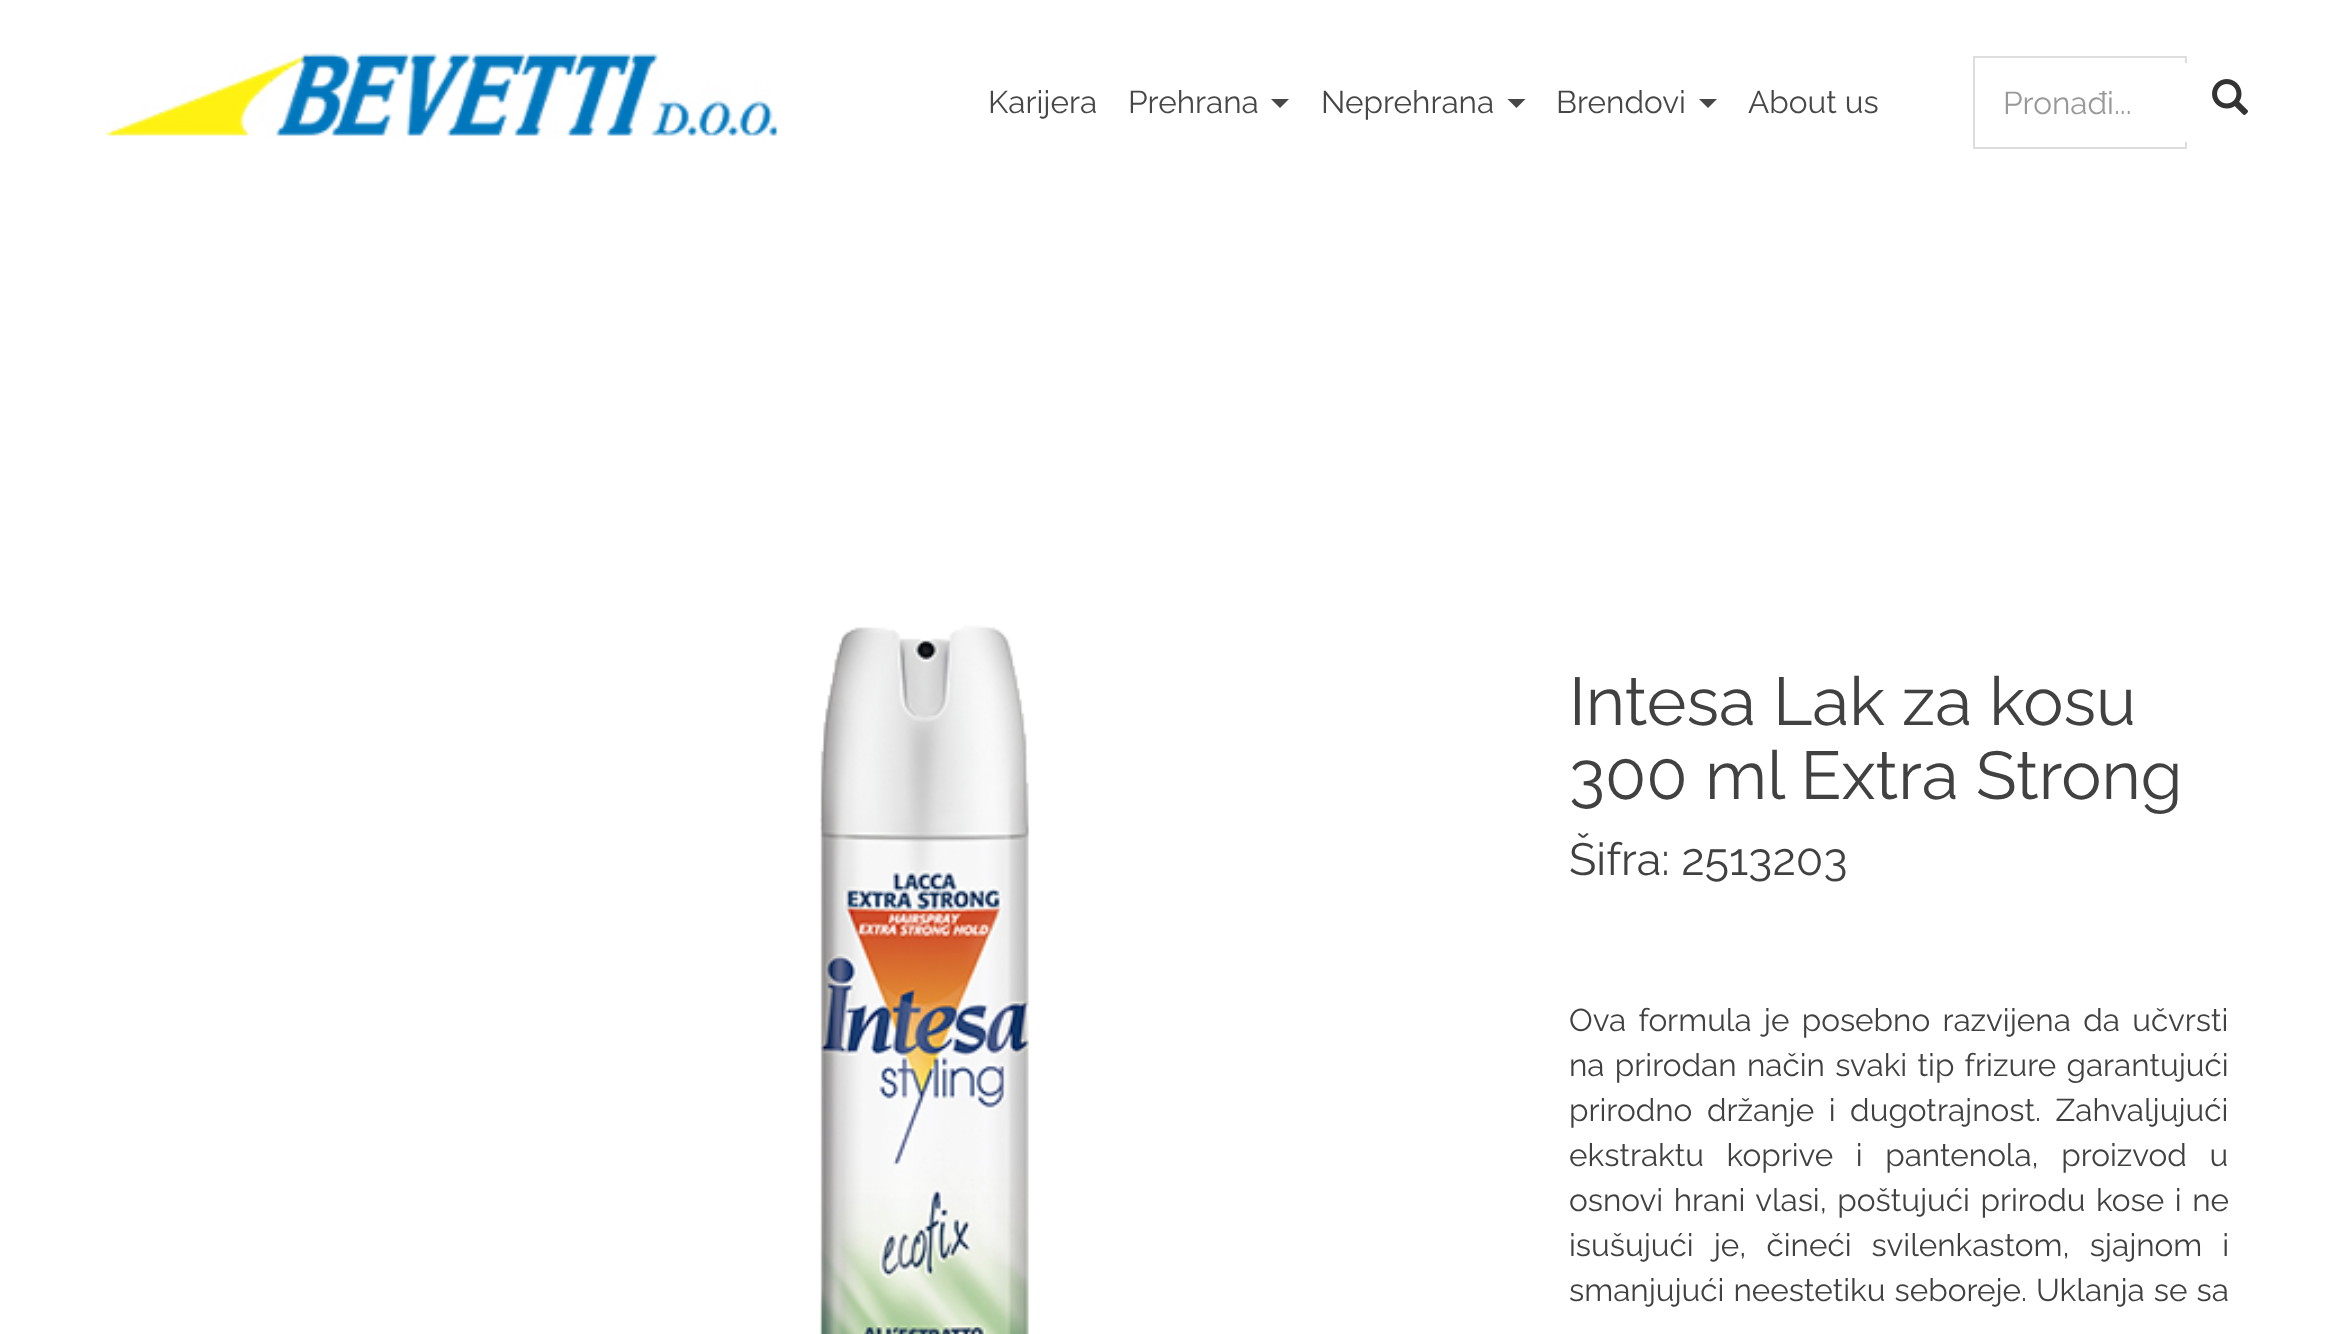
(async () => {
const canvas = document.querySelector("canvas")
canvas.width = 2341
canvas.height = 1334
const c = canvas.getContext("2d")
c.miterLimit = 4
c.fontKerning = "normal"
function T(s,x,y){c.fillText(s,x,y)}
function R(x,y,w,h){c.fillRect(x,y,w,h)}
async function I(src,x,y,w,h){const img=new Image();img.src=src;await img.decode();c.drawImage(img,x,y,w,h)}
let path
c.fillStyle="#fff"
R(0,0,2341,1334)
await I("1.png",105,53,672,86)
c.font="31.5px Raleway"
c.fillStyle="#474747"
T("Karijera",988,113)
T("Prehrana",1128,113)
path = new Path2D("M1271 99h18l-9 9z")
c.fill(path)
T("Neprehrana",1321,113)
path = new Path2D("M1507.5 99h18l-9 9z")
c.fill(path)
T("Brendovi",1556,113)
path = new Path2D("M1699 99h18l-9 9z")
c.fill(path)
T("About us",1748,113)
c.strokeStyle="#ddd"
c.lineWidth=2
c.strokeRect(1974,57,212,91)
c.fillStyle="#999"
T("Pronađi...",2003,114)
c.fillStyle="#fff"
c.beginPath()
c.roundRect(2185,63,90,79,[0,9,9,0])
c.fill()
await I("2.png",2212,79,36,36)
await I("3.png",819,625,211,709)
c.font="67.5px Raleway"
c.fillStyle="#414141"
T("Intesa Lak za kosu",1569,725)
T("300 ml Extra Strong",1569,799)
c.font="45px Raleway"
T("Šifra: 2513203",1569,875)
c.wordSpacing="4.25px"
c.font="31.5px Raleway"
T("Ova formula je posebno razvijena da učvrsti",1569,1031)
c.wordSpacing="2.25px"
T("na prirodan način svaki tip frizure garantujući",1569,1076)
c.wordSpacing="6.5px"
T("prirodno držanje i dugotrajnost. Zahvaljujući",1569,1121)
c.wordSpacing="14.5px"
T("ekstraktu koprive i pantenola, proizvod u",1569,1166)
c.wordSpacing="2.5px"
T("osnovi hrani vlasi, poštujući prirodu kose i ne",1569,1211)
c.wordSpacing="12px"
T("isušujući je, čineći svilenkastom, sjajnom i",1569,1256)
c.wordSpacing="1px"
T("smanjujući neestetiku seboreje. Uklanja se sa",1569,1301)
})()
